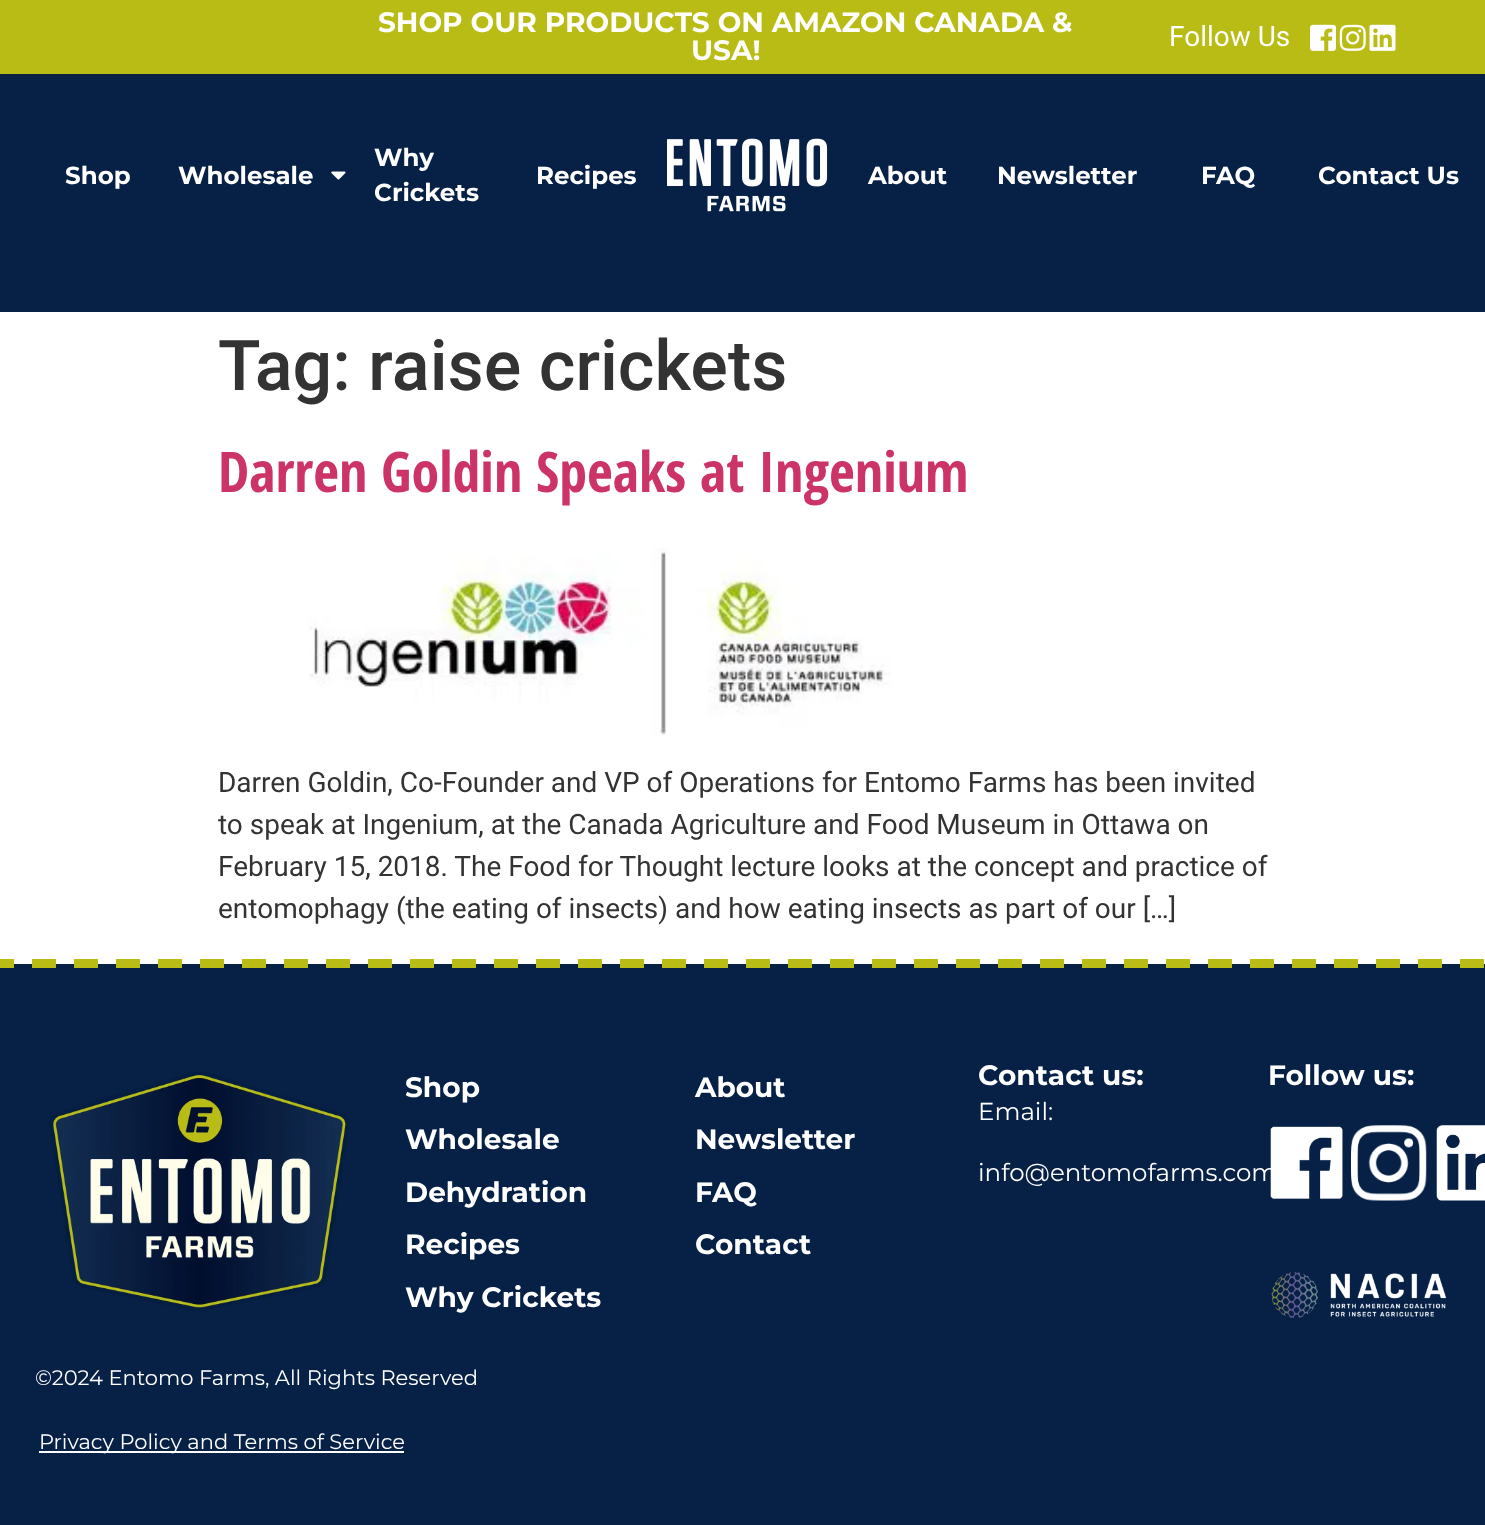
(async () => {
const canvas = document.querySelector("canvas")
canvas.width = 1485
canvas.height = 1525
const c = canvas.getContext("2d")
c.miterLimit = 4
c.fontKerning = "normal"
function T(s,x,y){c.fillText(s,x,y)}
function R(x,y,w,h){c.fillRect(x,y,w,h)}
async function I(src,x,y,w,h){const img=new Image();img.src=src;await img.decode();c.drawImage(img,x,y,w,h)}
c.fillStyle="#fff"
R(0,0,1485,1525)
c.fillStyle="#babc16"
R(0,0,1485,74)
c.font="bold 28px Montserrat"
c.fillStyle="#fff"
T("SHOP OUR PRODUCTS ON AMAZON CANADA &",378,32)
T("USA!",691,60)
c.font="28px Roboto"
T("Follow Us",1169,46)
await I("1.png",1310,24,26,27)
await I("2.png",1339,24,27,27)
await I("3.png",1369,24,27,27)
c.fillStyle="#072046"
R(0,74,1485,238)
c.font="bold 24.5px Montserrat"
c.fillStyle="#fff"
T("Shop",65,184)
T("Wholesale",178,184)
await I("4.png",331,171,15,9)
T("Why",374,166)
T("Crickets",374,201)
T("Recipes",536,184)
await I("5.png",667,138,161,74)
T("About",868,184)
T("Newsletter",997,184)
T("FAQ",1201,184)
T("Contact Us",1318,184)
c.font="500 70px Roboto"
c.fillStyle="#333"
T("Tag: raise crickets",218,390)
c.font="bold 56px Open Sans Condensed"
c.fillStyle="#c36"
T("Darren Goldin Speaks at Ingenium",218,492)
await I("6.png",309,548,582,188)
c.font="28px Roboto"
c.fillStyle="#333"
T("Darren Goldin, Co-Founder and VP of Operations for Entomo Farms has been invited",218,792)
T("to speak at Ingenium, at the Canada Agriculture and Food Museum in Ottawa on",218,834)
T("February 15, 2018. The Food for Thought lecture looks at the concept and practice of",218,876)
T("entomophagy (the eating of insects) and how eating insects as part of our […]",218,918)
c.fillStyle="#072046"
R(0,964,1485,561)
await I("7.png",0,959,1484,9)
await I("8.png",49,1071,300,240)
c.font="bold 28px Montserrat"
c.fillStyle="#fff"
T("Shop",405,1097)
T("Wholesale",405,1149)
T("Dehydration",405,1202)
T("Recipes",405,1254)
T("Why Crickets",405,1307)
T("About",695,1097)
T("Newsletter",695,1149)
T("FAQ",695,1202)
T("Contact",695,1254)
T("Contact us:",978,1085)
c.font="100 24.5px Montserrat"
T("Email:",978,1120)
T("info@entomofarms.com",978,1181)
c.font="bold 28px Montserrat"
T("Follow us:",1268,1085)
await I("9.png",1270,1126,73,73)
await I("10.png",1351,1125,76,76)
await I("11.png",1436,1125,49,76)
await I("12.png",1271,1272,176,46)
c.font="100 21px Montserrat"
T("©2024 Entomo Farms, All Rights Reserved",35,1385)
R(39,1451,365,2)
T("Privacy Policy and Terms of Service",39,1449)
})()
